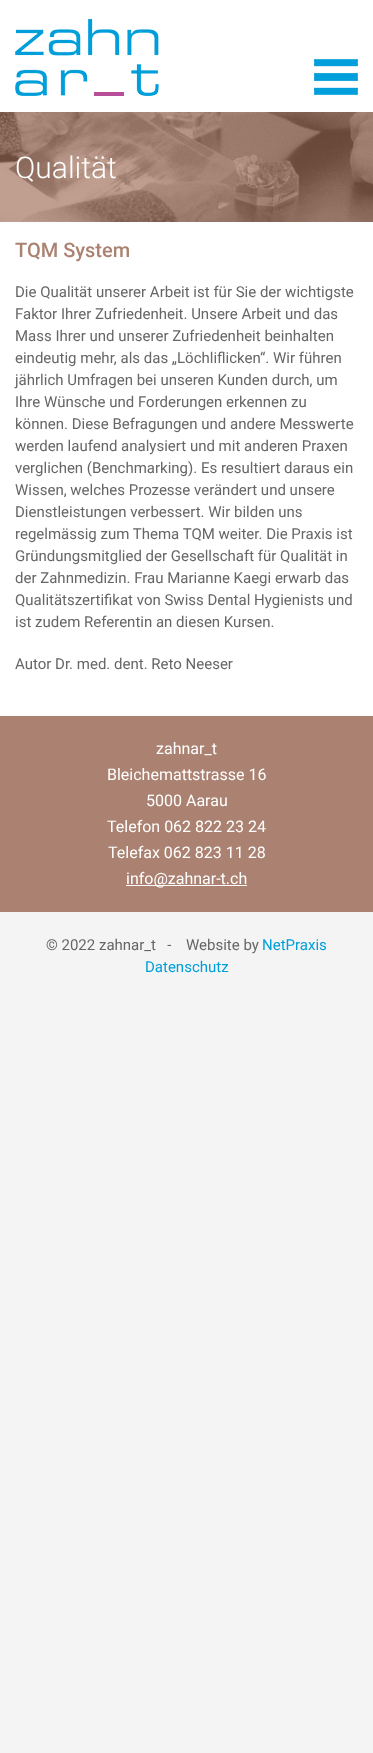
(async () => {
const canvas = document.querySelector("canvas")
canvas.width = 373
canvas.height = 1753
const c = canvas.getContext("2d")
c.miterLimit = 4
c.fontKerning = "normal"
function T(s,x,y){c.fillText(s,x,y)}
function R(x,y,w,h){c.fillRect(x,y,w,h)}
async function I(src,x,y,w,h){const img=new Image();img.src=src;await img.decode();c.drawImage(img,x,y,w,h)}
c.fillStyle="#f4f4f4"
R(0,0,373,1753)
c.fillStyle="#fff"
R(0,0,373,112)
await I("1.png",15,19,144,77)
await I("2.png",314,59,44,36)
await I("3.png",0,112,373,110)
c.font="300 30px Roboto"
T("Qualität",15,178)
R(0,222,373,494)
c.font="500 20px Roboto"
c.fillStyle="#ab8271"
T("TQM System",15,257)
c.font="15px Roboto"
c.fillStyle="#666"
T("Die Qualität unserer Arbeit ist für Sie der wichtigste",15,297)
T("Faktor Ihrer Zufriedenheit. Unsere Arbeit und das",15,319)
T("Mass Ihrer und unserer Zufriedenheit beinhalten",15,341)
T("eindeutig mehr, als das „Löchliflicken“. Wir führen",15,363)
T("jährlich Umfragen bei unseren Kunden durch, um",15,385)
T("Ihre Wünsche und Forderungen erkennen zu",15,407)
T("können. Diese Befragungen und andere Messwerte",15,429)
T("werden laufend analysiert und mit anderen Praxen",15,451)
T("verglichen (Benchmarking). Es resultiert daraus ein",15,473)
T("Wissen, welches Prozesse verändert und unsere",15,495)
T("Dienstleistungen verbessert. Wir bilden uns",15,517)
T("regelmässig zum Thema TQM weiter. Die Praxis ist",15,539)
T("Gründungsmitglied der Gesellschaft für Qualität in",15,561)
T("der Zahnmedizin. Frau Marianne Kaegi erwarb das",15,583)
T("Qualitätszertifikat von Swiss Dental Hygienists und",15,605)
T("ist zudem Referentin an diesen Kursen.",15,627)
T("Autor Dr. med. dent. Reto Neeser",15,669)
c.fillStyle="#ab8271"
R(0,716,373,196)
c.font="16px Roboto"
c.fillStyle="#fff"
T("zahnar_t",156,754)
T("Bleichemattstrasse 16",107,780)
T("5000 Aarau",146,806)
T("Telefon 062 822 23 24",107,832)
T("Telefax 062 823 11 28",108,858)
R(126,885,121,1)
T("info@zahnar-t.ch",126,884)
c.font="15px Roboto"
c.fillStyle="#666"
T("© 2022 zahnar_t   -",46,950)
T("Website by",186,950)
c.fillStyle="#009eda"
T("NetPraxis",262,950)
T("Datenschutz",145,972)
})()
